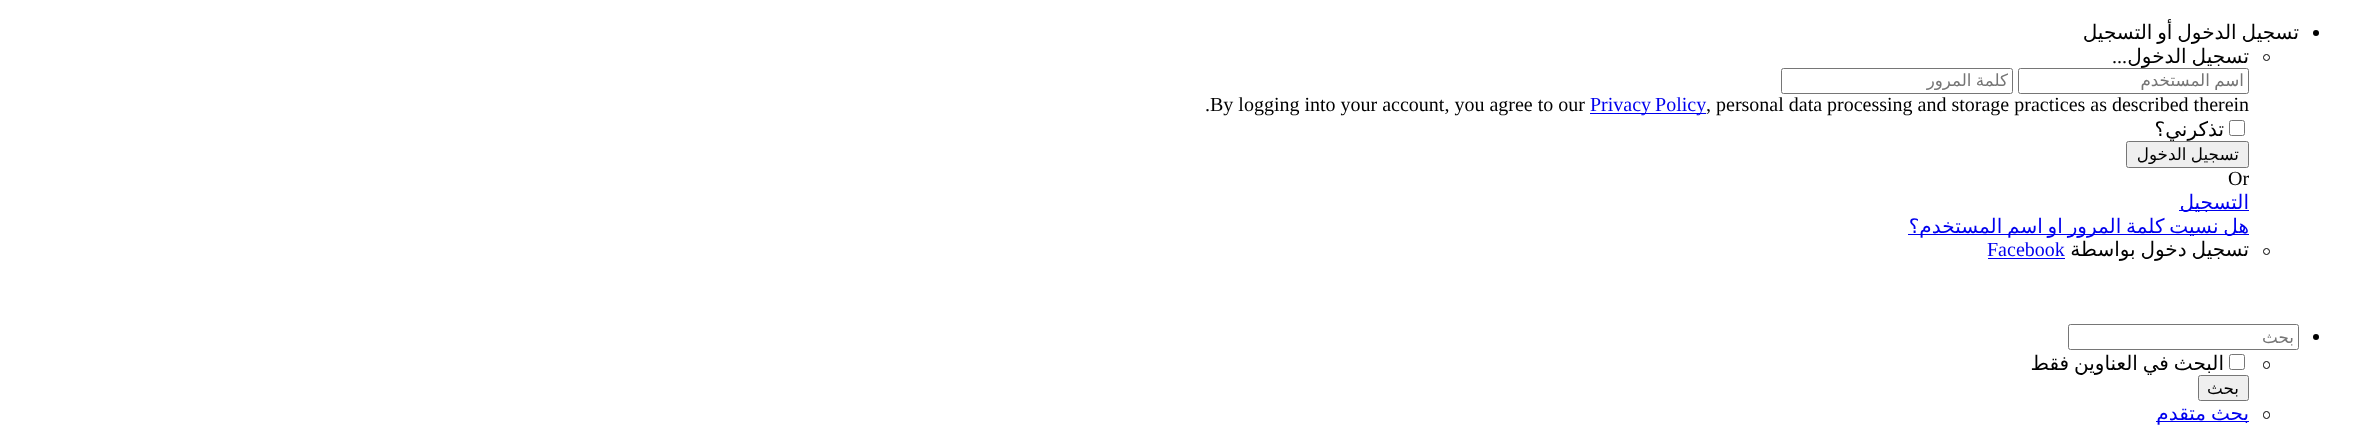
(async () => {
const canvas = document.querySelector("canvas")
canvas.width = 2358
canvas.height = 433
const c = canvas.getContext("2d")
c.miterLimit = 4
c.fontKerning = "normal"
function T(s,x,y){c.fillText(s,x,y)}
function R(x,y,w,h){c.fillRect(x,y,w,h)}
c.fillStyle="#fff"
R(0,0,2358,433)
c.fillStyle="#000"
c.beginPath()
c.arc(2316,33,3,0,7)
c.fill()
c.wordSpacing="-1.5px"
c.direction="rtl"
c.font="20px DejaVu Sans"
T("تسجيل الدخول أو التسجيل",2299,39)
c.beginPath()
c.arc(2266.5,57.5,3,0,7)
c.strokeStyle="#000"
c.stroke()
T("تسجيل الدخول",2249,63)
c.wordSpacing="0px"
c.font="20px Liberation Serif"
T("...",2127,63)
c.beginPath()
c.roundRect(2018.5,68.5,230,25,2)
c.strokeStyle="#767676"
c.stroke()
c.wordSpacing="-1px"
c.font="16.75px DejaVu Sans"
c.fillStyle="#757575"
T("اسم المستخدم",2244,86)
c.beginPath()
c.roundRect(1781.5,68.5,231,25,2)
c.stroke()
T("كلمة المرور",2008,86)
c.wordSpacing="0px"
c.direction="ltr"
c.font="20px Liberation Serif"
c.fillStyle="#000"
T(", personal data processing and storage practices as described therein",1706,111)
c.fillStyle="#00e"
R(1590,113,116,1)
c.wordSpacing="-1px"
T("Privacy Policy",1590,111)
c.wordSpacing="0px"
c.fillStyle="#000"
T("By logging into your account, you agree to our",1210,111)
T(".",1205,111)
c.beginPath()
c.roundRect(2229.5,120.5,15,15,2)
c.stroke()
c.direction="rtl"
c.font="20px DejaVu Sans"
T("تذكرني؟",2224,136)
c.fillStyle="#efefef"
c.beginPath()
c.roundRect(2126.5,141.5,122,26,2)
c.fill()
c.stroke()
c.wordSpacing="-1px"
c.font="16.75px DejaVu Sans"
c.fillStyle="#000"
T("تسجيل الدخول",2239,160)
c.wordSpacing="0px"
c.direction="ltr"
c.font="20px Liberation Serif"
T("Or",2228,185)
c.fillStyle="#00e"
R(2179,210,70,1)
c.direction="rtl"
c.font="20px DejaVu Sans"
T("التسجيل",2249,209)
R(1908,234,341,1)
c.wordSpacing="-1.5px"
T("هل نسيت كلمة المرور او اسم المستخدم؟",2249,233)
c.beginPath()
c.arc(2266.5,251.5,3,0,7)
c.strokeStyle="#000"
c.stroke()
c.fillStyle="#000"
T("تسجيل دخول بواسطة",2249,256)
c.wordSpacing="0px"
c.direction="ltr"
c.font="20px Liberation Serif"
c.fillStyle="#00e"
T("Facebook",1987,256)
R(1988,258,77,1)
c.fillStyle="#000"
c.beginPath()
c.arc(2316,337,3,0,7)
c.fill()
c.beginPath()
c.roundRect(2068.5,324.5,230,25,2)
c.strokeStyle="#767676"
c.stroke()
c.direction="rtl"
c.font="16.75px DejaVu Sans"
c.fillStyle="#757575"
T("بحث",2294,343)
c.beginPath()
c.roundRect(2263.5,361.5,6,7,3)
c.strokeStyle="#000"
c.stroke()
c.beginPath()
c.roundRect(2229.5,354.5,15,15,2)
c.strokeStyle="#767676"
c.stroke()
c.wordSpacing="-1.5px"
c.font="20px DejaVu Sans"
c.fillStyle="#000"
T("البحث في العناوين فقط",2224,370)
c.fillStyle="#efefef"
c.beginPath()
c.roundRect(2198.5,375.5,50,25,2)
c.fill()
c.stroke()
c.wordSpacing="0px"
c.font="16.75px DejaVu Sans"
c.fillStyle="#000"
T("بحث",2239,394)
c.beginPath()
c.roundRect(2263.5,411.5,6,7,3)
c.strokeStyle="#000"
c.stroke()
c.fillStyle="#00e"
R(2156,421,93,1)
c.wordSpacing="-1.5px"
c.font="20px DejaVu Sans"
T("بحث متقدم",2249,420)
})()
